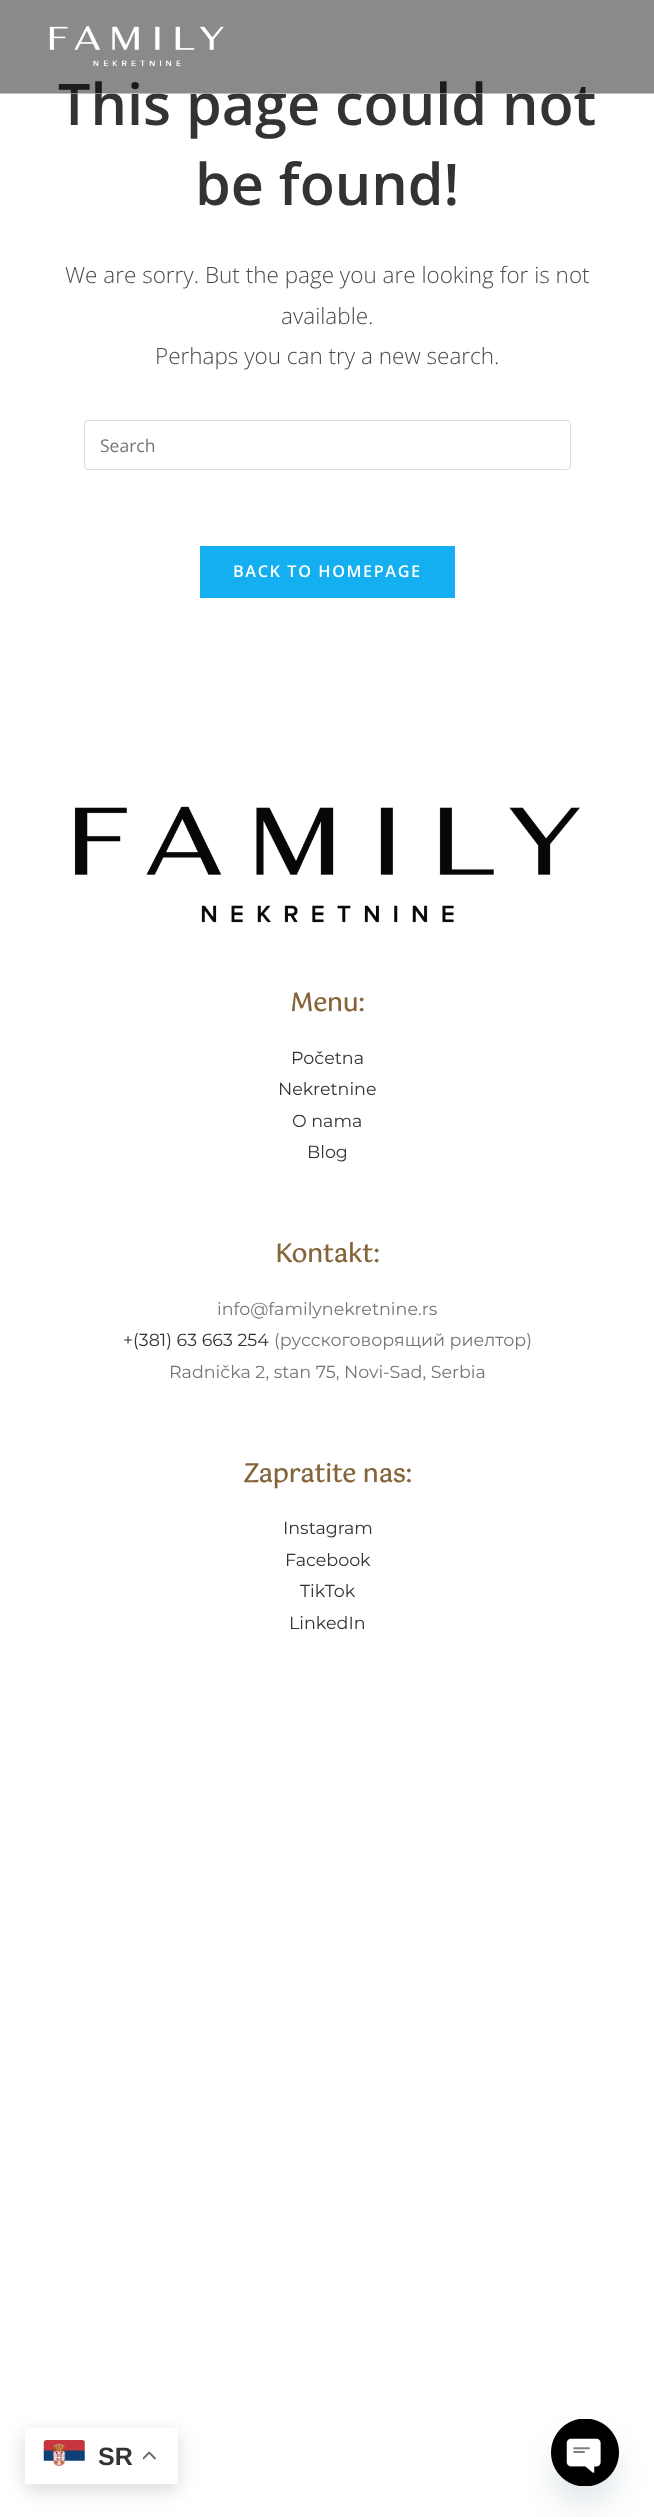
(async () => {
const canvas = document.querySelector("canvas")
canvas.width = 654
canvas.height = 2517
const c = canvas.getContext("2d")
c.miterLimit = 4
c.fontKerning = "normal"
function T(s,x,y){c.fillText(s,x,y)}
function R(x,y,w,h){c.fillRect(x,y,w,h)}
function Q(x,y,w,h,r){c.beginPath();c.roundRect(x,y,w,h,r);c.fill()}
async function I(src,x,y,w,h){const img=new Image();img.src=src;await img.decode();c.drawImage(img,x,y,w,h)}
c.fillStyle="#fff"
R(0,0,654,2517)
c.font="600 57.5px Open Sans"
c.fillStyle="#333"
T("This page could not",58,125)
c.fillStyle="#00000075"
R(0,0,654,94)
c.fillStyle="#f2f2f280"
R(0,93,654,1)
await I("1.png",49,26,175,41)
c.fillStyle="#333"
T("be found!",195,205)
c.font="300 22.5px Open Sans"
c.fillStyle="#4a4a4a"
T("We are sorry. But the page you are looking for is not",65,283)
T("available.",281,324)
T("Perhaps you can try a new search.",155,364)
c.beginPath()
c.roundRect(84.5,420.5,486,49,3.5)
c.strokeStyle="#ddd"
c.stroke()
c.font="17.5px Open Sans"
c.fillStyle="#757575"
T("Search",100,452)
c.fillStyle="#13aff0"
R(200,546,255,52)
c.letterSpacing="1.6px"
c.font="600 16.25px Open Sans"
c.fillStyle="#fff"
T("BACK TO HOMEPAGE",233,577)
await I("2.png",74,806,506,117)
c.letterSpacing="0px"
c.font="bold 25px Gotu"
c.fillStyle="#866439"
T("Menu:",290,1011)
c.font="17.5px Montserrat"
c.fillStyle="#333"
T("Početna",291,1064)
T("Nekretnine",278,1095)
T("O nama",292,1127)
T("Blog",307,1158)
c.font="bold 25px Gotu"
c.fillStyle="#866439"
T("Kontakt:",275,1262)
c.font="17.5px Montserrat"
c.fillStyle="#757575"
T("info@familynekretnine.rs",217,1315)
c.fillStyle="#333"
T("+(381) 63 663 254",123,1346)
c.fillStyle="#757575"
T("(русскоговорящий риелтор)",274,1346)
T("Radnička 2, stan 75, Novi-Sad, Serbia",169,1378)
c.font="bold 25px Gotu"
c.fillStyle="#866439"
T("Zapratite nas:",243,1482)
c.font="17.5px Montserrat"
c.fillStyle="#333"
T("Instagram",283,1534)
T("Facebook",285,1566)
T("TikTok",300,1597)
T("LinkedIn",289,1629)
c.fillStyle="#00000026"
c.filter="blur(9.5px)"
c.beginPath()
c.roundRect(25,2434,153,56,2.5)
c.fill()
c.filter="none"
c.fillStyle="#fff"
Q(25,2428,153,56,2.5)
await I("3.png",43,2440,42,26)
c.font="bold 25px Liberation Sans"
c.fillStyle="#333"
T("SR",98,2465)
await I("4.png",143,2451,13,9)
c.fillStyle="#49687e29"
c.filter="blur(15px)"
c.beginPath()
c.roundRect(551,2439,68,67,33.5)
c.fill()
c.filter="none"
await I("5.png",551,2419,68,67)
})()
